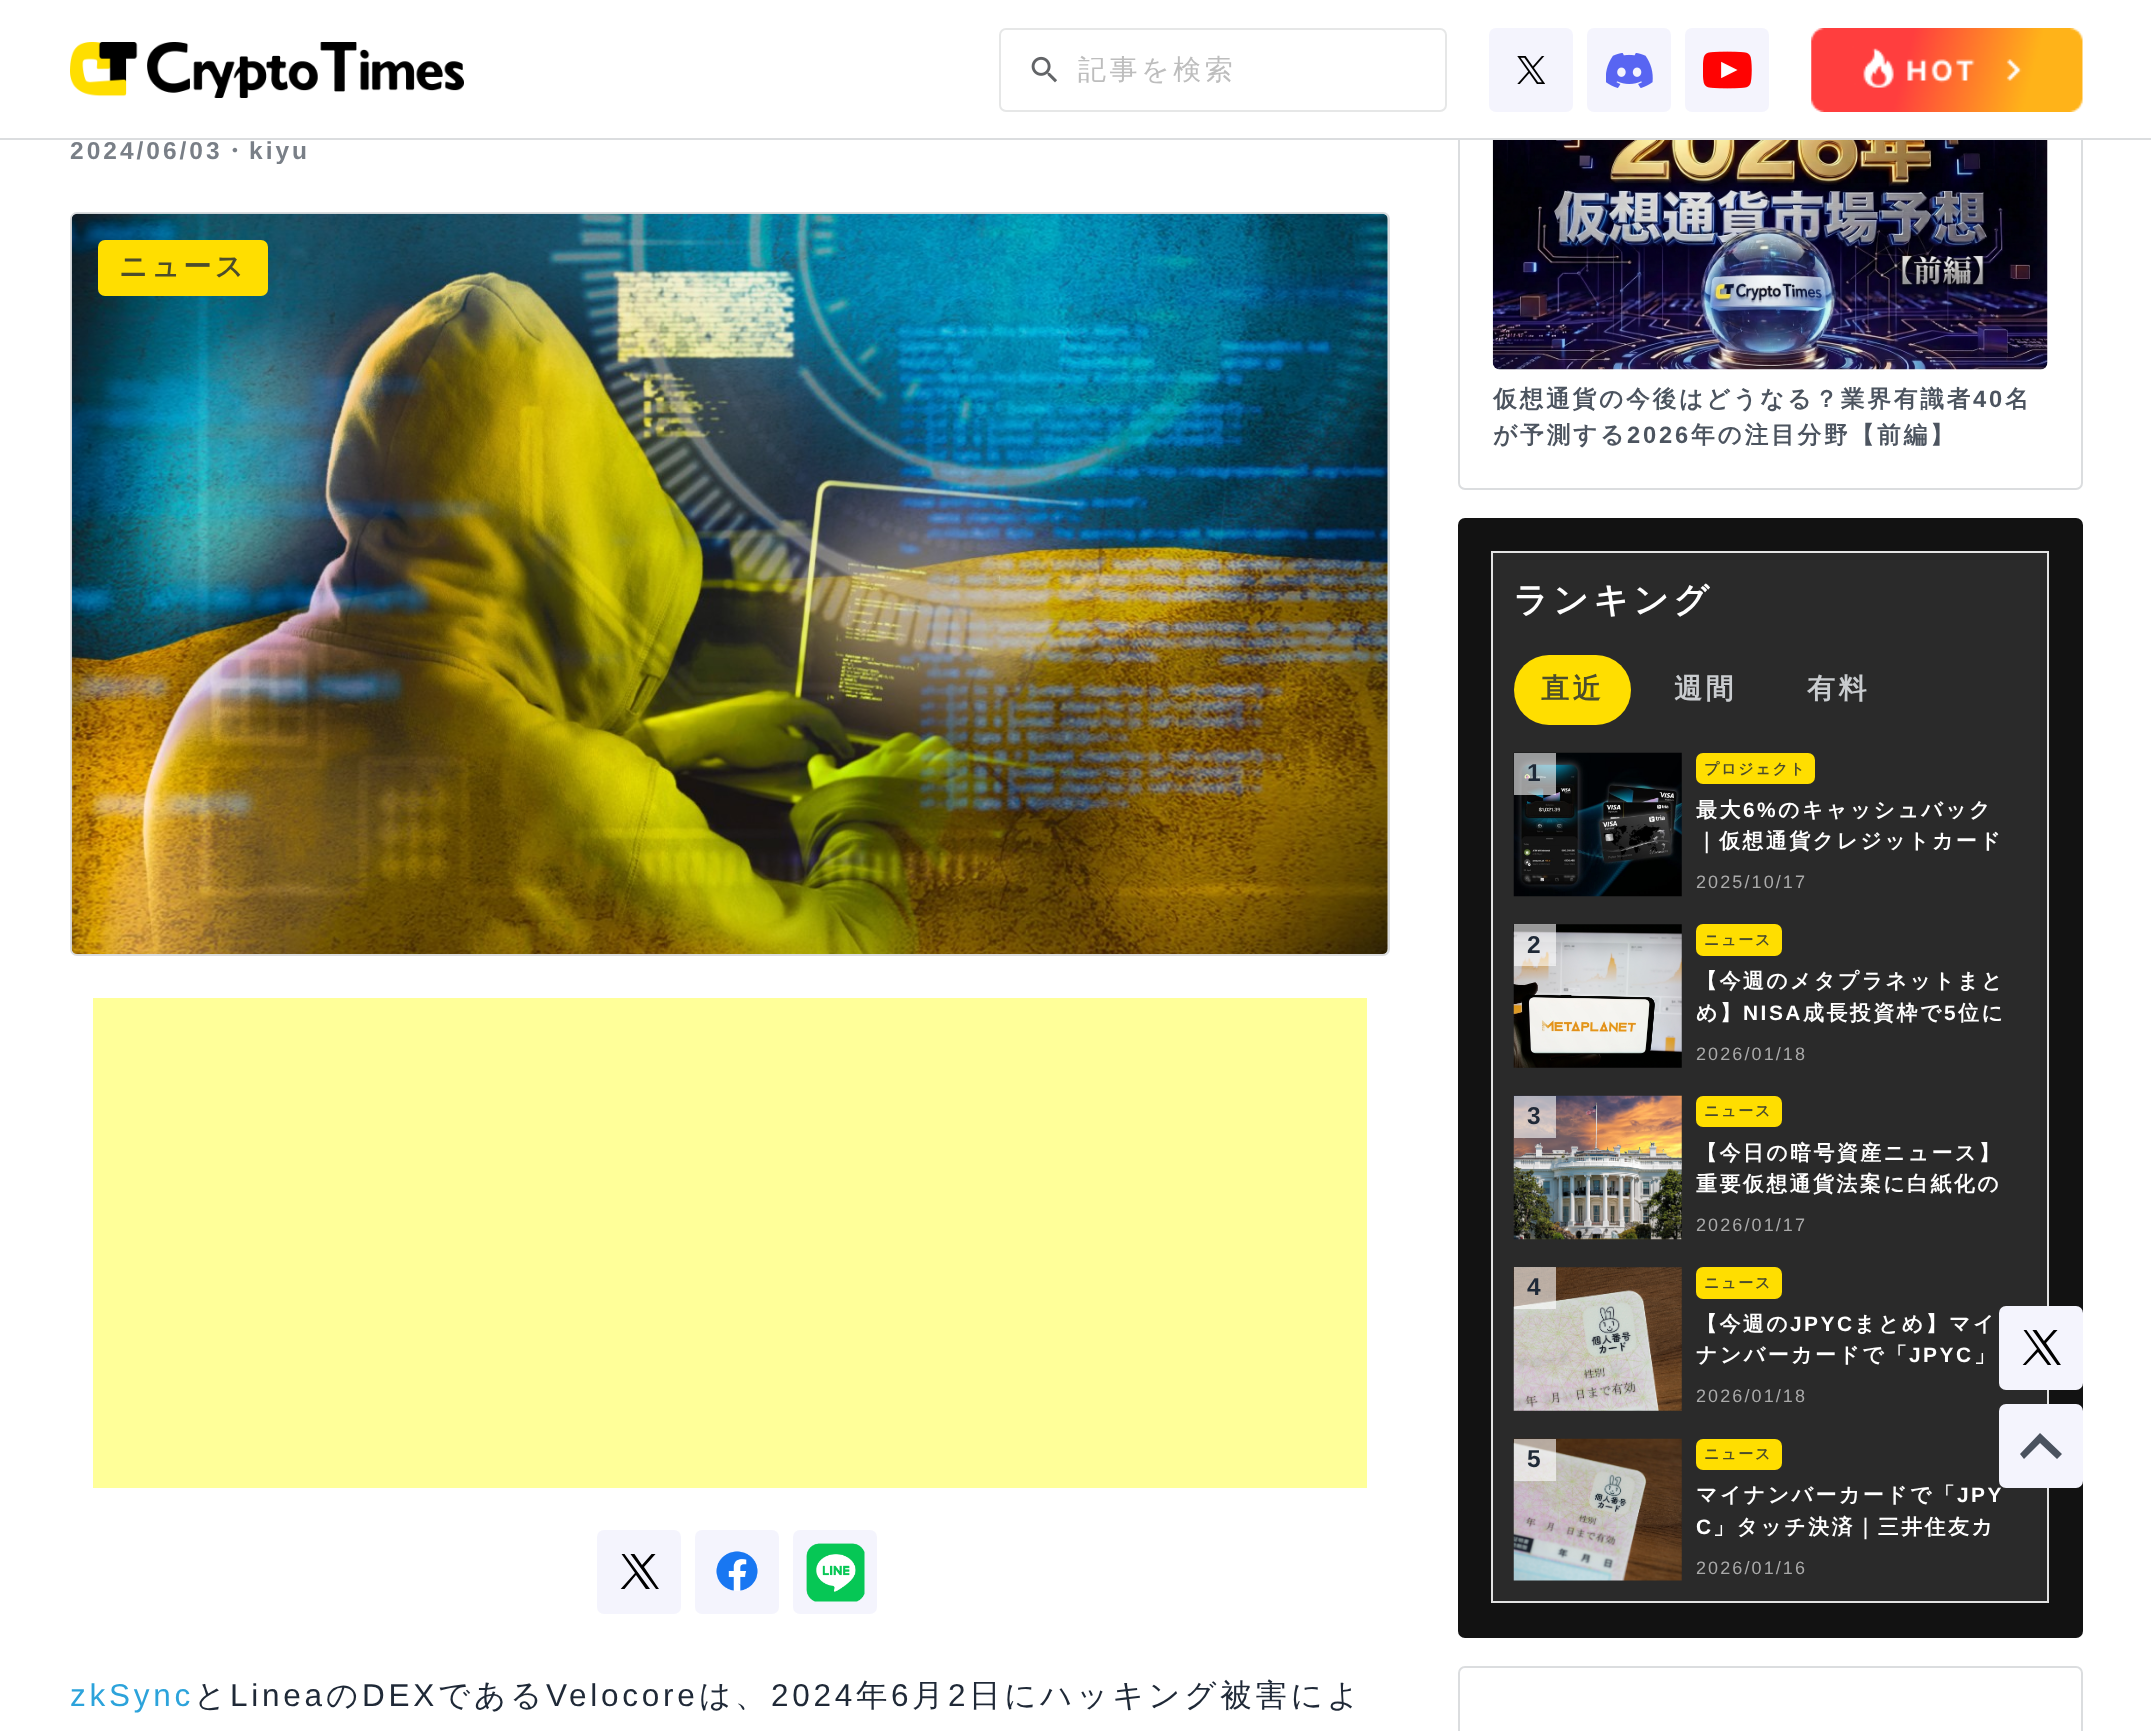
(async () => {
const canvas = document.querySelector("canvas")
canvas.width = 2151
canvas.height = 1731
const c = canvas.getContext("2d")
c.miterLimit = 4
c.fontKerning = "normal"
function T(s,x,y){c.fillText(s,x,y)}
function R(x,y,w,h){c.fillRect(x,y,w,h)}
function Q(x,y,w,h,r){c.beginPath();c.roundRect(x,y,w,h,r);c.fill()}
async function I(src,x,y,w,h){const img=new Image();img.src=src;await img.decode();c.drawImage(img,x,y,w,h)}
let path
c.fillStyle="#fff"
R(0,0,2151,1731)
c.beginPath()
c.roundRect(1459,-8,623,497,6)
c.strokeStyle="#dbdddf"
c.lineWidth=2
c.stroke()
R(1458,0,625,138)
c.fillStyle="#dbdddf"
R(0,138,2151,2)
await I("1.png",70,42,394,56)
c.beginPath()
c.roundRect(1000,29,446,82,6)
c.strokeStyle="#e6e7e7"
c.stroke()
await I("2.png",1031,56,26,27)
c.letterSpacing="3.5px"
c.font="500 28px WenQuanYi Zen Hei"
c.fillStyle="#bdbdbd"
T("記事を検索",1078,79)
c.fillStyle="#f4f4fd"
Q(1489,28,84,84,7)
await I("3.png",1517,56,28,28)
Q(1587,28,84,84,7)
await I("4.png",1606,53,47,35)
Q(1685,28,84,84,7)
await I("5.png",1703,51,49,38)
await I("6.png",1811,28,272,84)
c.letterSpacing="3px"
c.font="bold 24.5px Liberation Sans"
c.fillStyle="#797f87"
T("2024/06/03",70,159)
c.font="bold 24.5px WenQuanYi Zen Hei"
T("・",222,159)
c.font="bold 24.5px Liberation Sans"
T("kiyu",249,159)
c.beginPath()
c.roundRect(71,213,1318,742,6)
c.strokeStyle="#dbdddf"
c.stroke()
await I("7.png",71,213,1317,741)
c.fillStyle="#ffde00"
Q(98,240,170,56,7)
c.letterSpacing="3.5px"
c.font="bold 28px WenQuanYi Zen Hei"
c.fillStyle="#4c4d2c"
T("ニュース",119,276)
c.fillStyle="#ff9"
R(93,998,1274,490)
c.fillStyle="#f4f4fd"
Q(597,1530,84,84,7)
c.save()
c.beginPath()
c.rect(618,1554,42,35)
c.clip()
c.fillStyle="#000"
path = new Path2D("M644 1567l16-18h-4l-14 16l-11-16h-13l17 24l-17 19h4l14-17l12 17h13m-38-40h6l27 37h-6")
c.fill(path)
c.restore()
Q(695,1530,84,84,7)
await I("8.png",716,1551,42,40)
Q(793,1530,84,84,7)
await I("9.png",806,1543,59,59)
c.letterSpacing="3.75px"
c.font="31.5px Liberation Sans"
c.fillStyle="#2ca3db"
T("zkSync",70,1706)
c.font="500 31.5px WenQuanYi Zen Hei"
c.fillStyle="#1f2937"
T("と",194,1706)
c.font="31.5px Liberation Sans"
T("Linea",230,1706)
c.font="500 31.5px WenQuanYi Zen Hei"
T("の",326,1706)
c.font="31.5px Liberation Sans"
T("DEX",362,1706)
c.font="500 31.5px WenQuanYi Zen Hei"
T("である",438,1706)
c.font="31.5px Liberation Sans"
T("Velocore",546,1706)
c.font="500 31.5px WenQuanYi Zen Hei"
T("は、",699,1706)
c.font="31.5px Liberation Sans"
T("2024",771,1706)
c.font="500 31.5px WenQuanYi Zen Hei"
T("年",856,1706)
c.font="31.5px Liberation Sans"
T("6",891,1706)
c.font="500 31.5px WenQuanYi Zen Hei"
T("月",912,1706)
c.font="31.5px Liberation Sans"
T("2",948,1706)
c.font="500 31.5px WenQuanYi Zen Hei"
T("日にハッキング被害によ",969,1706)
await I("10.png",1492,140,556,230)
c.letterSpacing="2.8px"
c.font="bold 23.7px WenQuanYi Zen Hei"
c.fillStyle="#4c545f"
T("仮想通貨の今後はどうなる？業界有識者",1493,407)
c.font="bold 23.7px Liberation Sans"
T("40",1973,407)
c.font="bold 23.7px WenQuanYi Zen Hei"
T("名",2005,407)
T("が予測する",1493,443)
c.font="bold 23.7px Liberation Sans"
T("2026",1627,443)
c.font="bold 23.7px WenQuanYi Zen Hei"
T("年の注目分野【前編】",1691,443)
c.fillStyle="#121212"
Q(1458,518,625,1120,7)
c.fillStyle="#2a2a2a"
c.beginPath()
c.rect(1492,552,556,1050)
c.fill()
c.strokeStyle="#e3e3e3"
c.stroke()
c.letterSpacing="4.25px"
c.font="bold 35px WenQuanYi Zen Hei"
c.fillStyle="#fff"
T("ランキング",1513,612)
c.fillStyle="#ffde00"
Q(1514,655,117,70,35)
c.letterSpacing="3.5px"
c.font="bold 28px WenQuanYi Zen Hei"
c.fillStyle="#4c4d2c"
T("直近",1541,698)
c.fillStyle="#c9cccf"
T("週間",1674,698)
T("有料",1807,698)
await I("11.png",1513,752,169,145)
c.fillStyle="#ffffff99"
R(1514,753,42,42)
c.letterSpacing="0px"
c.font="bold 24.5px Liberation Sans"
c.fillStyle="#1f2937"
T("1",1527,781)
c.fillStyle="#ffde00"
Q(1696,753,119,31,7)
c.letterSpacing="1.75px"
c.font="bold 15px WenQuanYi Zen Hei"
c.fillStyle="#4c4d2c"
T("プロジェクト",1704,774)
c.letterSpacing="2.5px"
c.font="bold 20.9px WenQuanYi Zen Hei"
c.fillStyle="#fff"
T("最大",1696,817)
c.font="bold 20.9px Liberation Sans"
T("6%",1743,817)
c.font="bold 20.9px WenQuanYi Zen Hei"
T("のキャッシュバック",1778,817)
T("｜仮想通貨クレジットカード",1696,848)
c.letterSpacing="2.1px"
c.font="18px Liberation Sans"
c.fillStyle="#aaa"
T("2025/10/17",1696,888)
await I("12.png",1513,924,169,144)
c.fillStyle="#ffffff99"
R(1514,924,42,42)
c.letterSpacing="0px"
c.font="bold 24.5px Liberation Sans"
c.fillStyle="#1f2937"
T("2",1527,953)
c.fillStyle="#ffde00"
Q(1696,924,86,32,7)
c.letterSpacing="1.75px"
c.font="bold 15px WenQuanYi Zen Hei"
c.fillStyle="#4c4d2c"
T("ニュース",1704,945)
c.letterSpacing="2.5px"
c.font="bold 20.9px WenQuanYi Zen Hei"
c.fillStyle="#fff"
T("【今週のメタプラネットまと",1696,988)
T("め】",1696,1020)
c.font="bold 20.9px Liberation Sans"
T("NISA",1743,1020)
c.font="bold 20.9px WenQuanYi Zen Hei"
T("成長投資枠で",1803,1020)
c.font="bold 20.9px Liberation Sans"
T("5",1944,1020)
c.font="bold 20.9px WenQuanYi Zen Hei"
T("位に",1958,1020)
c.letterSpacing="2.1px"
c.font="18px Liberation Sans"
c.fillStyle="#aaa"
T("2026/01/18",1696,1060)
await I("13.png",1513,1095,169,145)
c.fillStyle="#ffffff99"
R(1514,1096,42,42)
c.letterSpacing="0px"
c.font="bold 24.5px Liberation Sans"
c.fillStyle="#1f2937"
T("3",1527,1124)
c.fillStyle="#ffde00"
Q(1696,1096,86,31,7)
c.letterSpacing="1.75px"
c.font="bold 15px WenQuanYi Zen Hei"
c.fillStyle="#4c4d2c"
T("ニュース",1704,1116)
c.letterSpacing="2.5px"
c.font="bold 20.9px WenQuanYi Zen Hei"
c.fillStyle="#fff"
T("【今日の暗号資産ニュース】",1696,1160)
T("重要仮想通貨法案に白紙化の",1696,1191)
c.letterSpacing="2.1px"
c.font="18px Liberation Sans"
c.fillStyle="#aaa"
T("2026/01/17",1696,1231)
await I("14.png",1513,1267,169,144)
c.fillStyle="#ffffff99"
R(1514,1267,42,42)
c.letterSpacing="0px"
c.font="bold 24.5px Liberation Sans"
c.fillStyle="#1f2937"
T("4",1527,1295)
c.fillStyle="#ffde00"
Q(1696,1267,86,32,7)
c.letterSpacing="1.75px"
c.font="bold 15px WenQuanYi Zen Hei"
c.fillStyle="#4c4d2c"
T("ニュース",1704,1288)
c.letterSpacing="2.5px"
c.font="bold 20.9px WenQuanYi Zen Hei"
c.fillStyle="#fff"
T("【今週の",1696,1331)
c.font="bold 20.9px Liberation Sans"
T("JPYC",1790,1331)
c.font="bold 20.9px WenQuanYi Zen Hei"
T("まとめ】マイ",1854,1331)
T("ナンバーカードで「",1696,1362)
c.font="bold 20.9px Liberation Sans"
T("JPYC",1909,1362)
c.font="bold 20.9px WenQuanYi Zen Hei"
T("」",1974,1362)
c.letterSpacing="2.1px"
c.font="18px Liberation Sans"
c.fillStyle="#aaa"
T("2026/01/18",1696,1402)
await I("15.png",1513,1438,169,143)
c.fillStyle="#ffffff99"
R(1514,1439,42,42)
c.letterSpacing="0px"
c.font="bold 24.5px Liberation Sans"
c.fillStyle="#1f2937"
T("5",1527,1467)
c.fillStyle="#ffde00"
Q(1696,1439,86,31,7)
c.letterSpacing="1.75px"
c.font="bold 15px WenQuanYi Zen Hei"
c.fillStyle="#4c4d2c"
T("ニュース",1704,1459)
c.letterSpacing="2.5px"
c.font="bold 20.9px WenQuanYi Zen Hei"
c.fillStyle="#fff"
T("マイナンバーカードで「",1696,1502)
c.font="bold 20.9px Liberation Sans"
T("JPY",1957,1502)
T("C",1696,1534)
c.font="bold 20.9px WenQuanYi Zen Hei"
T("」タッチ決済｜三井住友カ",1713,1534)
c.letterSpacing="2.1px"
c.font="18px Liberation Sans"
c.fillStyle="#aaa"
T("2026/01/16",1696,1574)
c.fillStyle="#f4f4fd"
Q(1999,1306,84,84,7)
c.save()
c.beginPath()
c.rect(2020,1330,42,35)
c.clip()
c.fillStyle="#000"
path = new Path2D("M2046 1343l16-18h-4l-14 16l-11-16h-13l17 24l-17 19h3l15-16l12 16h13m-38-40h6l27 38h-6")
c.fill(path)
c.restore()
Q(1999,1404,84,84,7)
c.fillStyle="#4a525f"
path = new Path2D("M2024 1459l16-16l17 16l5-5l-22-21l-20 21z")
c.fill(path)
c.beginPath()
c.roundRect(1459,1667,623,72,6)
c.strokeStyle="#dbdddf"
c.stroke()
})()
